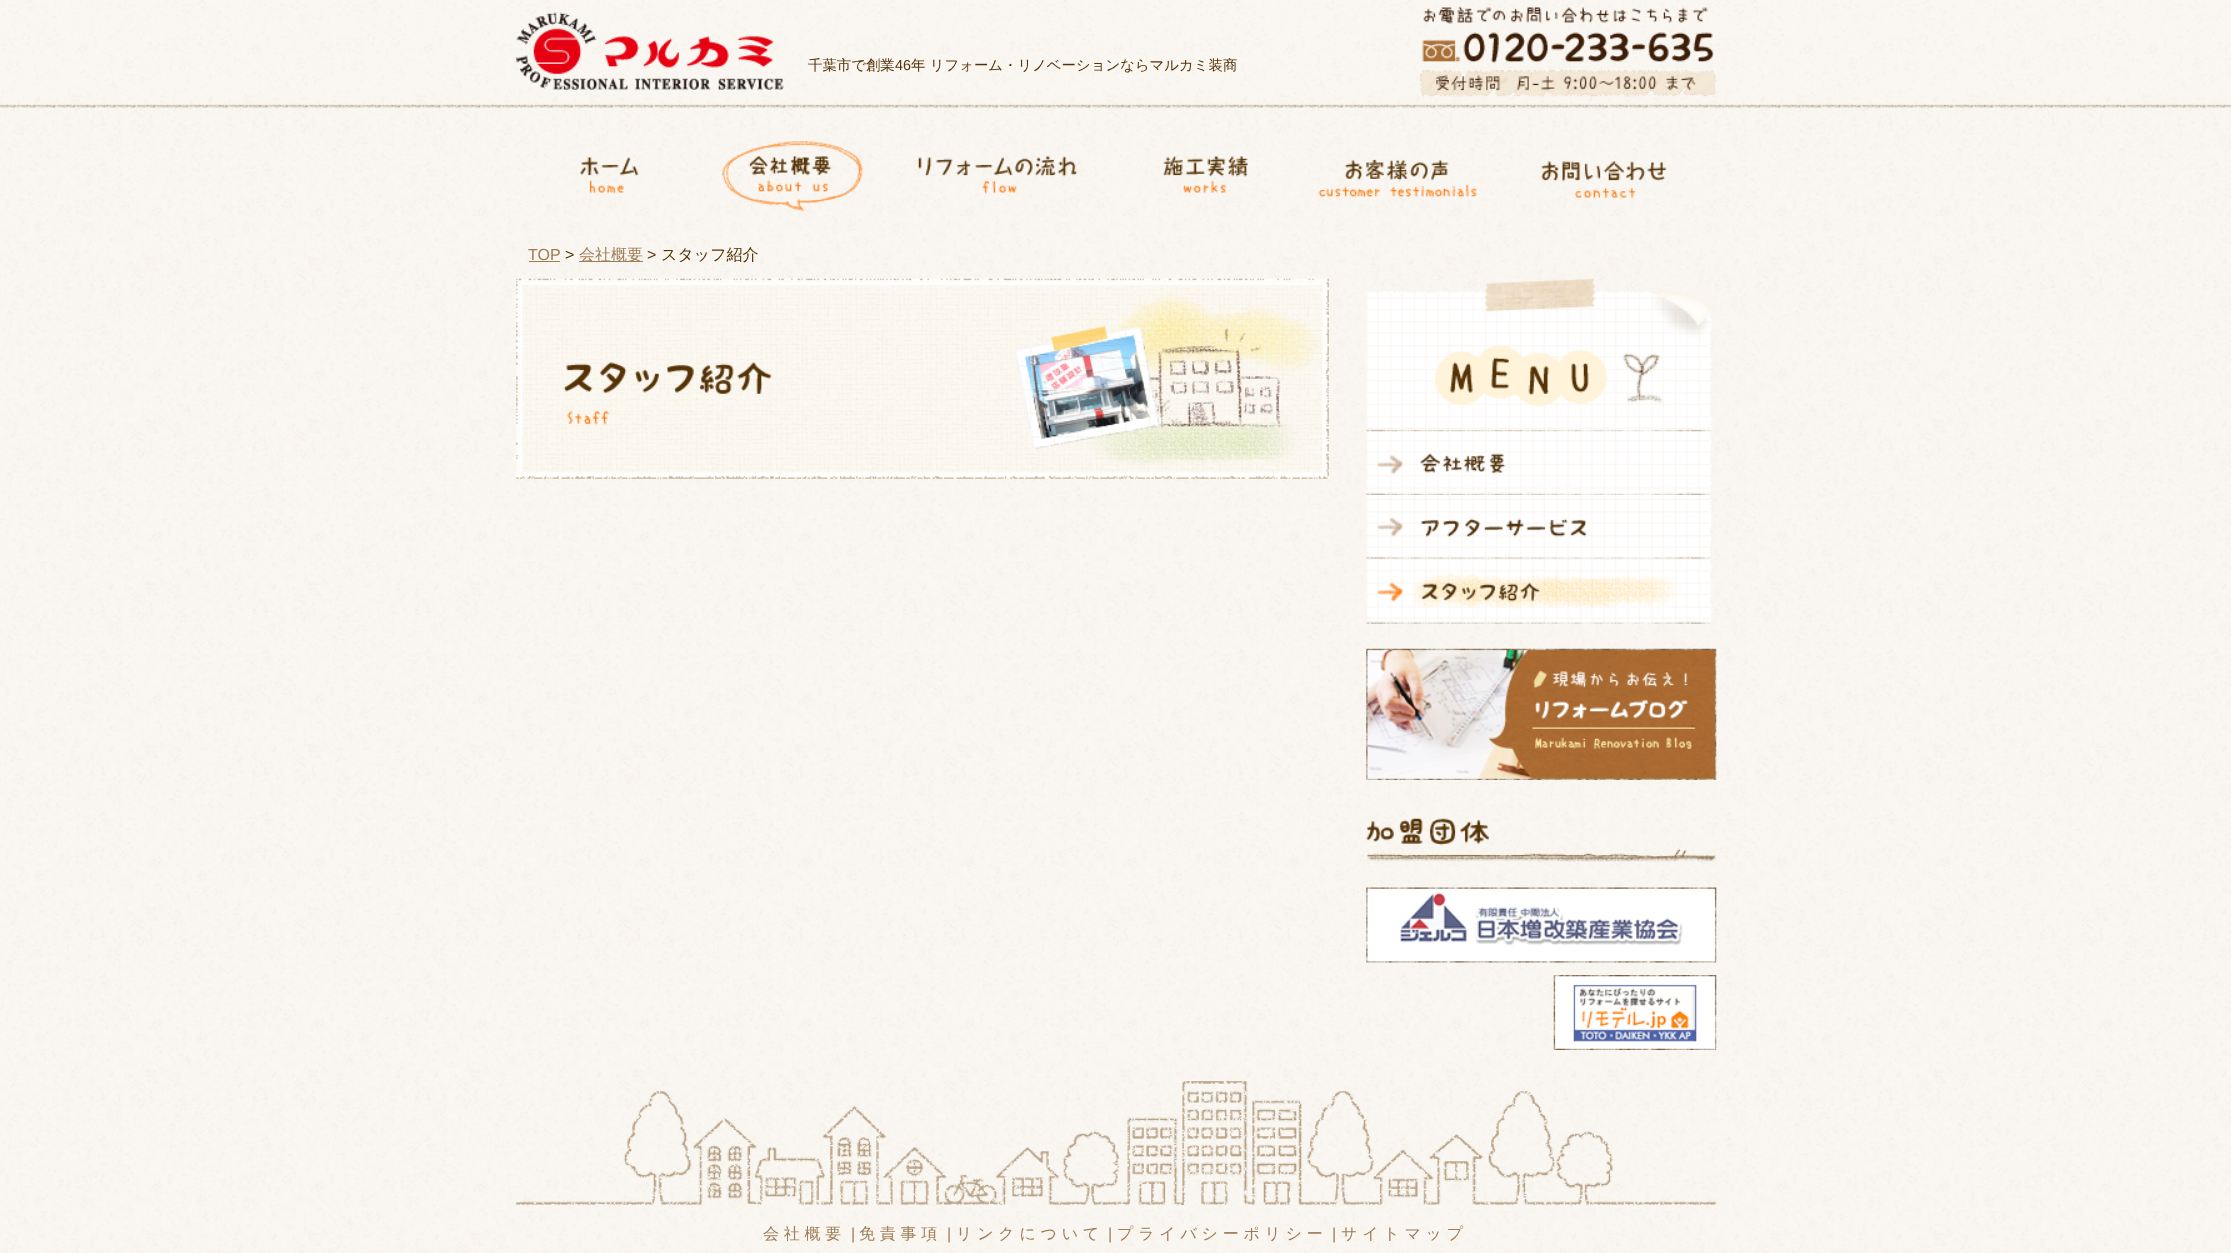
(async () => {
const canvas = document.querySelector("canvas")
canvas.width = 2231
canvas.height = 1253
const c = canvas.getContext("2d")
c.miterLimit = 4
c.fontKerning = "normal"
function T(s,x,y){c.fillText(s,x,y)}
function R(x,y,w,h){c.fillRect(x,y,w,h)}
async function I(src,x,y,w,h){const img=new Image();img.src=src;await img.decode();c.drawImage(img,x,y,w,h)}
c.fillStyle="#fff"
R(0,0,2231,1253)
await I("1.png",0,107,2231,1146)
await I("2.png",0,0,2231,108)
await I("3.png",516,12,268,78)
c.font="500 14.4px WenQuanYi Zen Hei"
c.fillStyle="#553307"
T("千葉市で創業",808,70)
c.font="14.4px Liberation Sans"
T("46",895,70)
c.font="500 14.4px WenQuanYi Zen Hei"
T("年 リフォーム・リノベーションならマルカミ装商",911,70)
await I("4.png",1420,6,297,91)
await I("5.png",580,157,59,37)
await I("6.png",722,141,141,71)
await I("7.png",918,156,159,38)
await I("8.png",1163,156,85,37)
await I("9.png",1318,159,159,39)
await I("10.png",1541,161,126,37)
c.font="16px Liberation Sans"
c.fillStyle="#9e7c56"
T("TOP",528,260)
R(529,261,31,1)
c.fillStyle="#553307"
T(">",565,260)
c.fillStyle="#9e7c56"
R(579,261,64,1)
c.font="500 16px WenQuanYi Zen Hei"
T("会社概要",579,260)
c.font="16px Liberation Sans"
c.fillStyle="#553307"
T(">",647,260)
c.font="500 16px WenQuanYi Zen Hei"
T("スタッフ紹介",661,260)
await I("11.png",516,278,813,201)
await I("13.png",1366,431,346,64)
await I("12.png",1366,278,346,154)
await I("14.png",1366,495,346,64)
await I("15.png",1366,558,346,66)
await I("16.png",1366,648,351,132)
await I("17.png",1366,818,351,44)
await I("18.png",1366,887,351,76)
await I("19.png",1553,975,164,75)
await I("20.png",516,1081,1201,124)
c.letterSpacing="4.75px"
c.fillStyle="#9e7c56"
T("会社概要",763,1239)
c.letterSpacing="0px"
c.font="16px Liberation Sans"
T("|",851,1239)
c.letterSpacing="4.75px"
c.font="500 16px WenQuanYi Zen Hei"
T("免責事項",859,1239)
c.letterSpacing="0px"
c.font="16px Liberation Sans"
T("|",947,1239)
c.letterSpacing="4.75px"
c.font="500 16px WenQuanYi Zen Hei"
T("リンクについて",956,1239)
c.letterSpacing="0px"
c.font="16px Liberation Sans"
T("|",1108,1239)
c.letterSpacing="4.75px"
c.font="500 16px WenQuanYi Zen Hei"
T("プライバシーポリシー",1117,1239)
c.letterSpacing="0px"
c.font="16px Liberation Sans"
T("|",1332,1239)
c.letterSpacing="4.75px"
c.font="500 16px WenQuanYi Zen Hei"
T("サイトマップ",1341,1239)
})()
